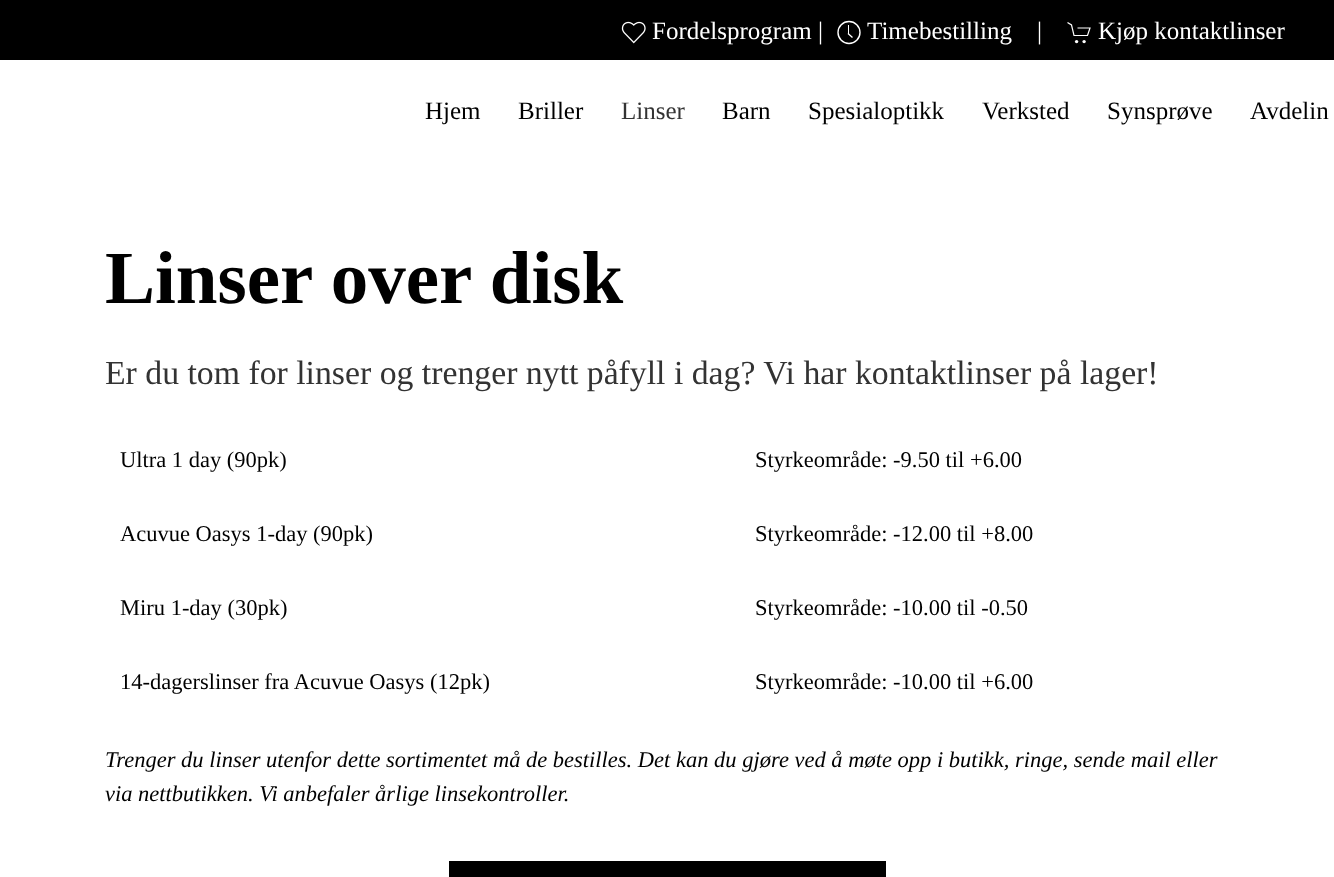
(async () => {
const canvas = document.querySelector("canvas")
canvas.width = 1334
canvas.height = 877
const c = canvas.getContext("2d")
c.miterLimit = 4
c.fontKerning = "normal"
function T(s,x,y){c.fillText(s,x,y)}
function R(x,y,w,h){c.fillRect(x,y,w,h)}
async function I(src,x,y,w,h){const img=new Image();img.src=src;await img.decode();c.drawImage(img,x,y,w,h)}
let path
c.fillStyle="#fff"
R(0,0,1334,877)
c.fillStyle="#000"
R(0,0,1334,60)
await I("1.png",621,21,25,23)
c.font="25px Liberation Serif"
c.fillStyle="#fff"
T("Fordelsprogram |",652,39)
c.beginPath()
c.arc(849,32.5,11,0,7)
c.strokeStyle="#fff"
c.lineWidth=1.4
c.stroke()
R(848,25,1,9)
path = new Path2D("M852.5 37.5l-4.5-4")
c.stroke(path)
T("Timebestilling",867,39)
T("|",1037,39)
path = new Path2D("M1067.5 22.5l4 2.5l2.5 10.5h13.5l2.5-7.5h-12.5")
c.lineWidth=1.2
c.stroke(path)
c.beginPath()
c.arc(1076.6,41.6,1.7,0,7)
c.fill()
c.beginPath()
c.arc(1084.1,41.6,1.7,0,7)
c.fill()
T("Kjøp kontaktlinser",1098,39)
c.fillStyle="#000"
T("Hjem",425,119)
T("Briller",518,119)
c.fillStyle="#333"
T("Linser",621,119)
c.fillStyle="#000"
T("Barn",722,119)
T("Spesialoptikk",808,119)
T("Verksted",982,119)
T("Synsprøve",1107,119)
T("Avdelin",1250,119)
c.font="bold 75px Liberation Serif"
T("Linser over disk",105,303)
c.font="33.75px Liberation Serif"
c.fillStyle="#333"
T("Er du tom for linser og trenger nytt påfyll i dag? Vi har kontaktlinser på lager!",105,384)
c.font="22.5px Liberation Serif"
c.fillStyle="#000"
T("Ultra 1 day (90pk)",120,467)
T("Styrkeområde: -9.50 til +6.00",755,467)
T("Acuvue Oasys 1-day (90pk)",120,541)
T("Styrkeområde: -12.00 til +8.00",755,541)
T("Miru 1-day (30pk)",120,615)
T("Styrkeområde: -10.00 til -0.50",755,615)
T("14-dagerslinser fra Acuvue Oasys (12pk)",120,689)
T("Styrkeområde: -10.00 til +6.00",755,689)
c.font="italic 22.5px Liberation Serif"
T("Trenger du linser utenfor dette sortimentet må de bestilles. Det kan du gjøre ved å møte opp i butikk, ringe, sende mail eller",105,767)
T("via nettbutikken. Vi anbefaler årlige linsekontroller.",105,801)
R(449,861,437,16)
})()
